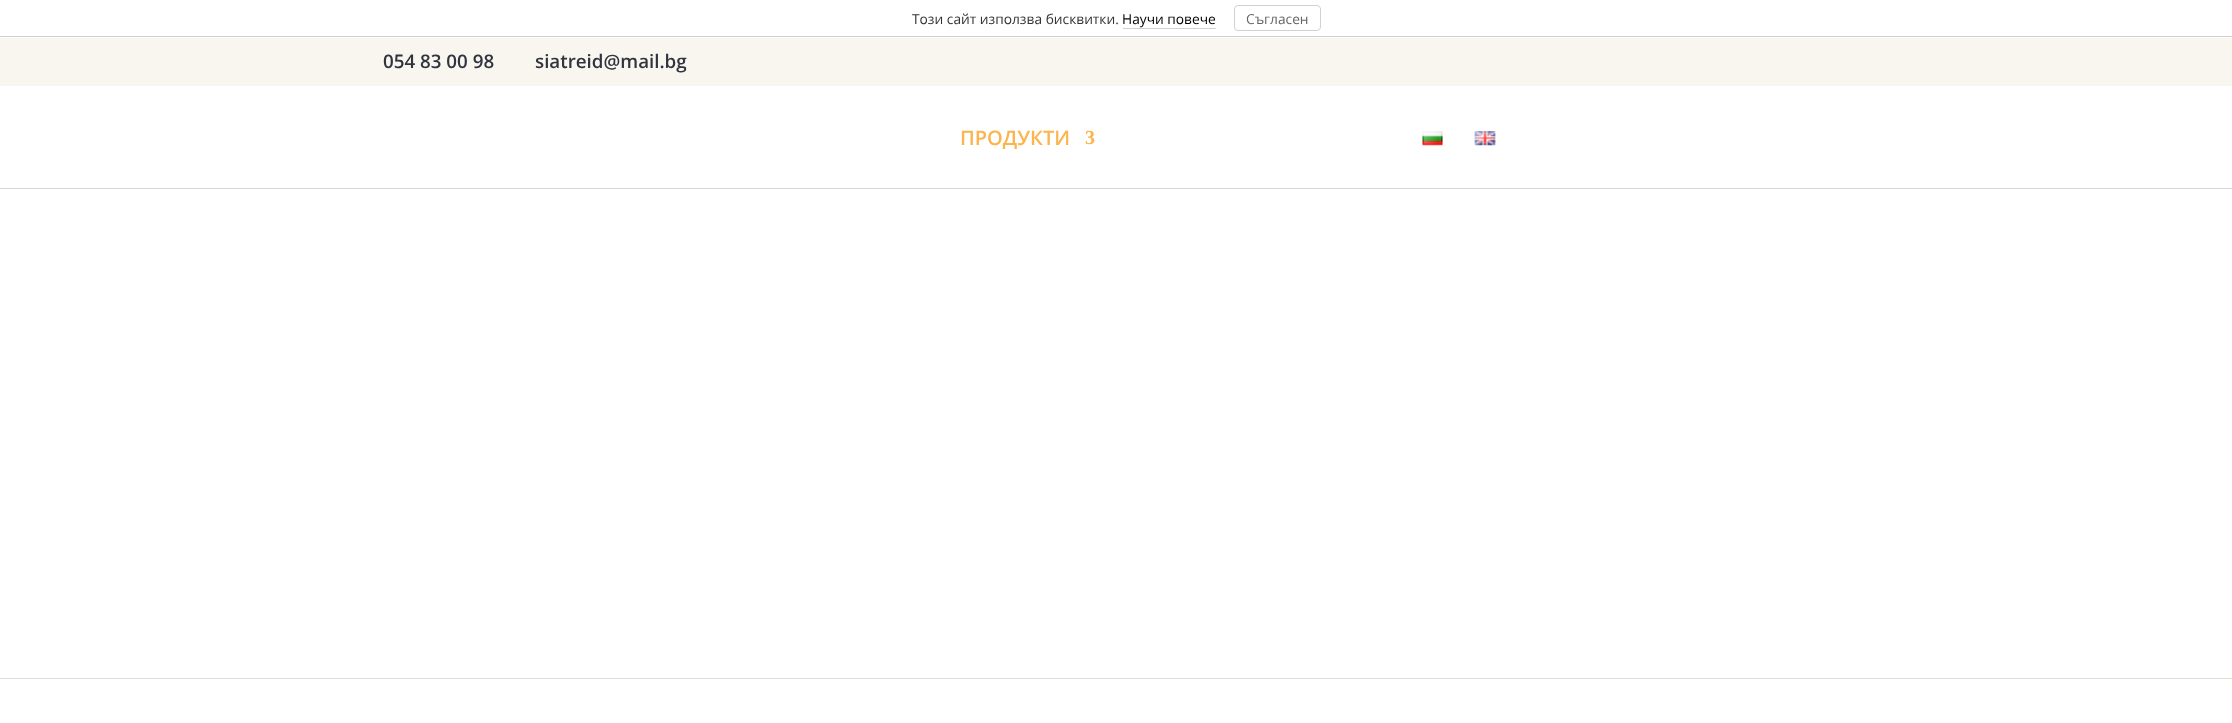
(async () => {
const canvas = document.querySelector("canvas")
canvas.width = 2232
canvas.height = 723
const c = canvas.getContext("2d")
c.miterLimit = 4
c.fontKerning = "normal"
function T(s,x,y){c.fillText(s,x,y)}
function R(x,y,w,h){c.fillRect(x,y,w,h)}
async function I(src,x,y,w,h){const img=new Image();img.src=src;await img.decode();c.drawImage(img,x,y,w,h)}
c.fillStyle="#fff"
R(0,0,2232,723)
c.fillStyle="#d1d1d1"
R(0,36,2232,1)
c.font="13.75px Open Sans"
c.fillStyle="#333"
T("Този сайт използва бисквитки.",912,24)
c.fillStyle="#000"
T("Научи повече",1122,24)
c.fillStyle="#d1d1d1"
R(1123,28,93,1)
c.beginPath()
c.roundRect(1234.5,5.5,86,25,3.5)
c.strokeStyle="#d1d1d1"
c.stroke()
c.fillStyle="#656565"
T("Съгласен",1246,24)
c.fillStyle="#f8f6ee"
R(0,38,2232,48)
c.font="600 18.75px Open Sans"
c.fillStyle="#30343f"
T("054 83 00 98",383,68)
T("siatreid@mail.bg",535,68)
c.fillStyle="#d6d6d9"
R(0,188,2232,1)
c.font="600 20px Open Sans"
c.fillStyle="#fcb44c"
T("ПРОДУКТИ",960,145)
c.font="bold 20px Liberation Serif"
T("3",1085,144)
await I("1.png",1422,131,21,15)
await I("2.png",1474,131,22,15)
c.fillStyle="#e1ded7"
R(0,678,2232,1)
})()
